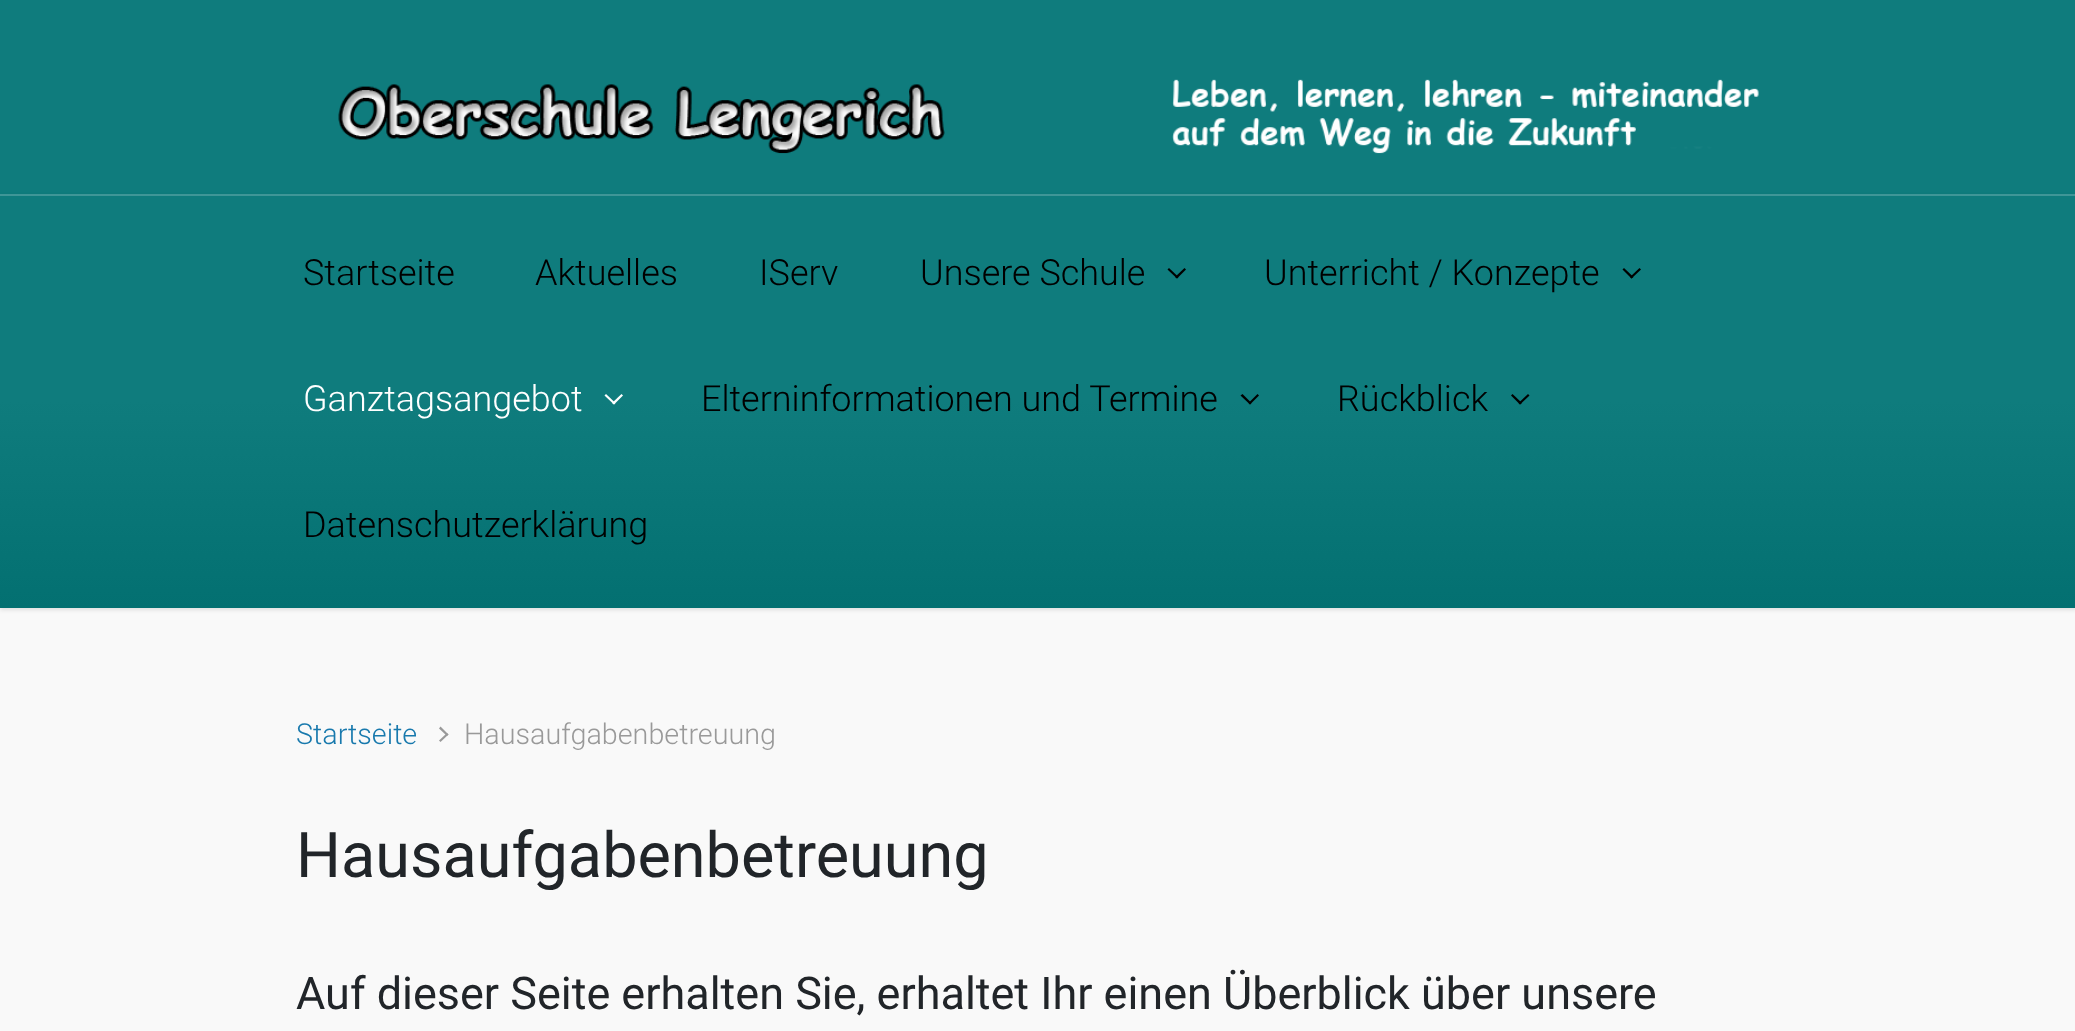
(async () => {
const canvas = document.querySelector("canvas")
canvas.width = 2075
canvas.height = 1031
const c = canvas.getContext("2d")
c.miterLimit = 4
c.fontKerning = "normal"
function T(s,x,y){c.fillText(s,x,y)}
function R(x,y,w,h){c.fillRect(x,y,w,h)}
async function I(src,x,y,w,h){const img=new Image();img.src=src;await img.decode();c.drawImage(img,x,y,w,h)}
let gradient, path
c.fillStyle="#f9f9f9"
R(0,0,2075,1031)
c.fillStyle="#0f7c7d"
R(0,0,2075,194)
await I("1.png",338,79,1421,75)
c.fillStyle="#0000001a"
c.filter="blur(2px)"
c.beginPath()
c.rect(0,196,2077,414)
c.fill()
c.filter="none"
gradient = c.createLinearGradient(1038,193,1038,608)
gradient.addColorStop(.5,"#0f7c7d")
gradient.addColorStop(1,"#037071")
c.fillStyle = gradient
R(0,196,2075,412)
c.fillStyle="#3f9697"
R(0,194,2075,2)
c.font="300 36px Roboto"
c.fillStyle="#000"
T("Startseite",303,285)
T("Aktuelles",535,285)
T("IServ",759,285)
T("Unsere Schule",920,285)
path = new Path2D("M1184.5 268l1.5 1.5l-9 9l-2-1.5z")
c.fill(path)
path = new Path2D("M1169 268l9.5 9l-1.5 1.5l-9.5-9z")
c.fill(path)
T("Unterricht / Konzepte",1264,285)
path = new Path2D("M1639.5 268l1.5 1.5l-9.5 9l-1.5-1.5z")
c.fill(path)
path = new Path2D("M1624 268l9.5 9l-2 1.5l-9-9z")
c.fill(path)
c.fillStyle="#fff"
T("Ganztagsangebot",303,411)
path = new Path2D("M621.5 394l1.5 1.5l-9 9l-2-1.5z")
c.fill(path)
path = new Path2D("M606 394l9.5 9l-1.5 1.5l-9.5-9z")
c.fill(path)
c.fillStyle="#000"
T("Elterninformationen und Termine",701,411)
path = new Path2D("M1257.5 394l1.5 1.5l-9 9l-1.5-1.5z")
c.fill(path)
path = new Path2D("M1242.5 394l9 9l-1.5 1.5l-9.5-9z")
c.fill(path)
T("Rückblick",1337,411)
path = new Path2D("M1528 394l1.5 1.5l-9.5 9l-1.5-1.5z")
c.fill(path)
path = new Path2D("M1512.5 394l9.5 9l-2 1.5l-9-9z")
c.fill(path)
T("Datenschutzerklärung",303,537)
c.font="300 28.75px Roboto"
c.fillStyle="#1879ad"
T("Startseite",296,744)
c.fillStyle="#999"
path = new Path2D("M439 728.5l1.5-2l8 8l-1.5 1.5z")
c.fill(path)
path = new Path2D("M439 740.5l8-7.5l1.5 1.5l-8 7.5z")
c.fill(path)
T("Hausaufgabenbetreuung",464,744)
c.font="63px Roboto"
c.fillStyle="#212529"
T("Hausaufgabenbetreuung",296,877)
c.font="45px Roboto"
T("Auf dieser Seite erhalten Sie, erhaltet Ihr einen Überblick über unsere",296,1009)
})()
